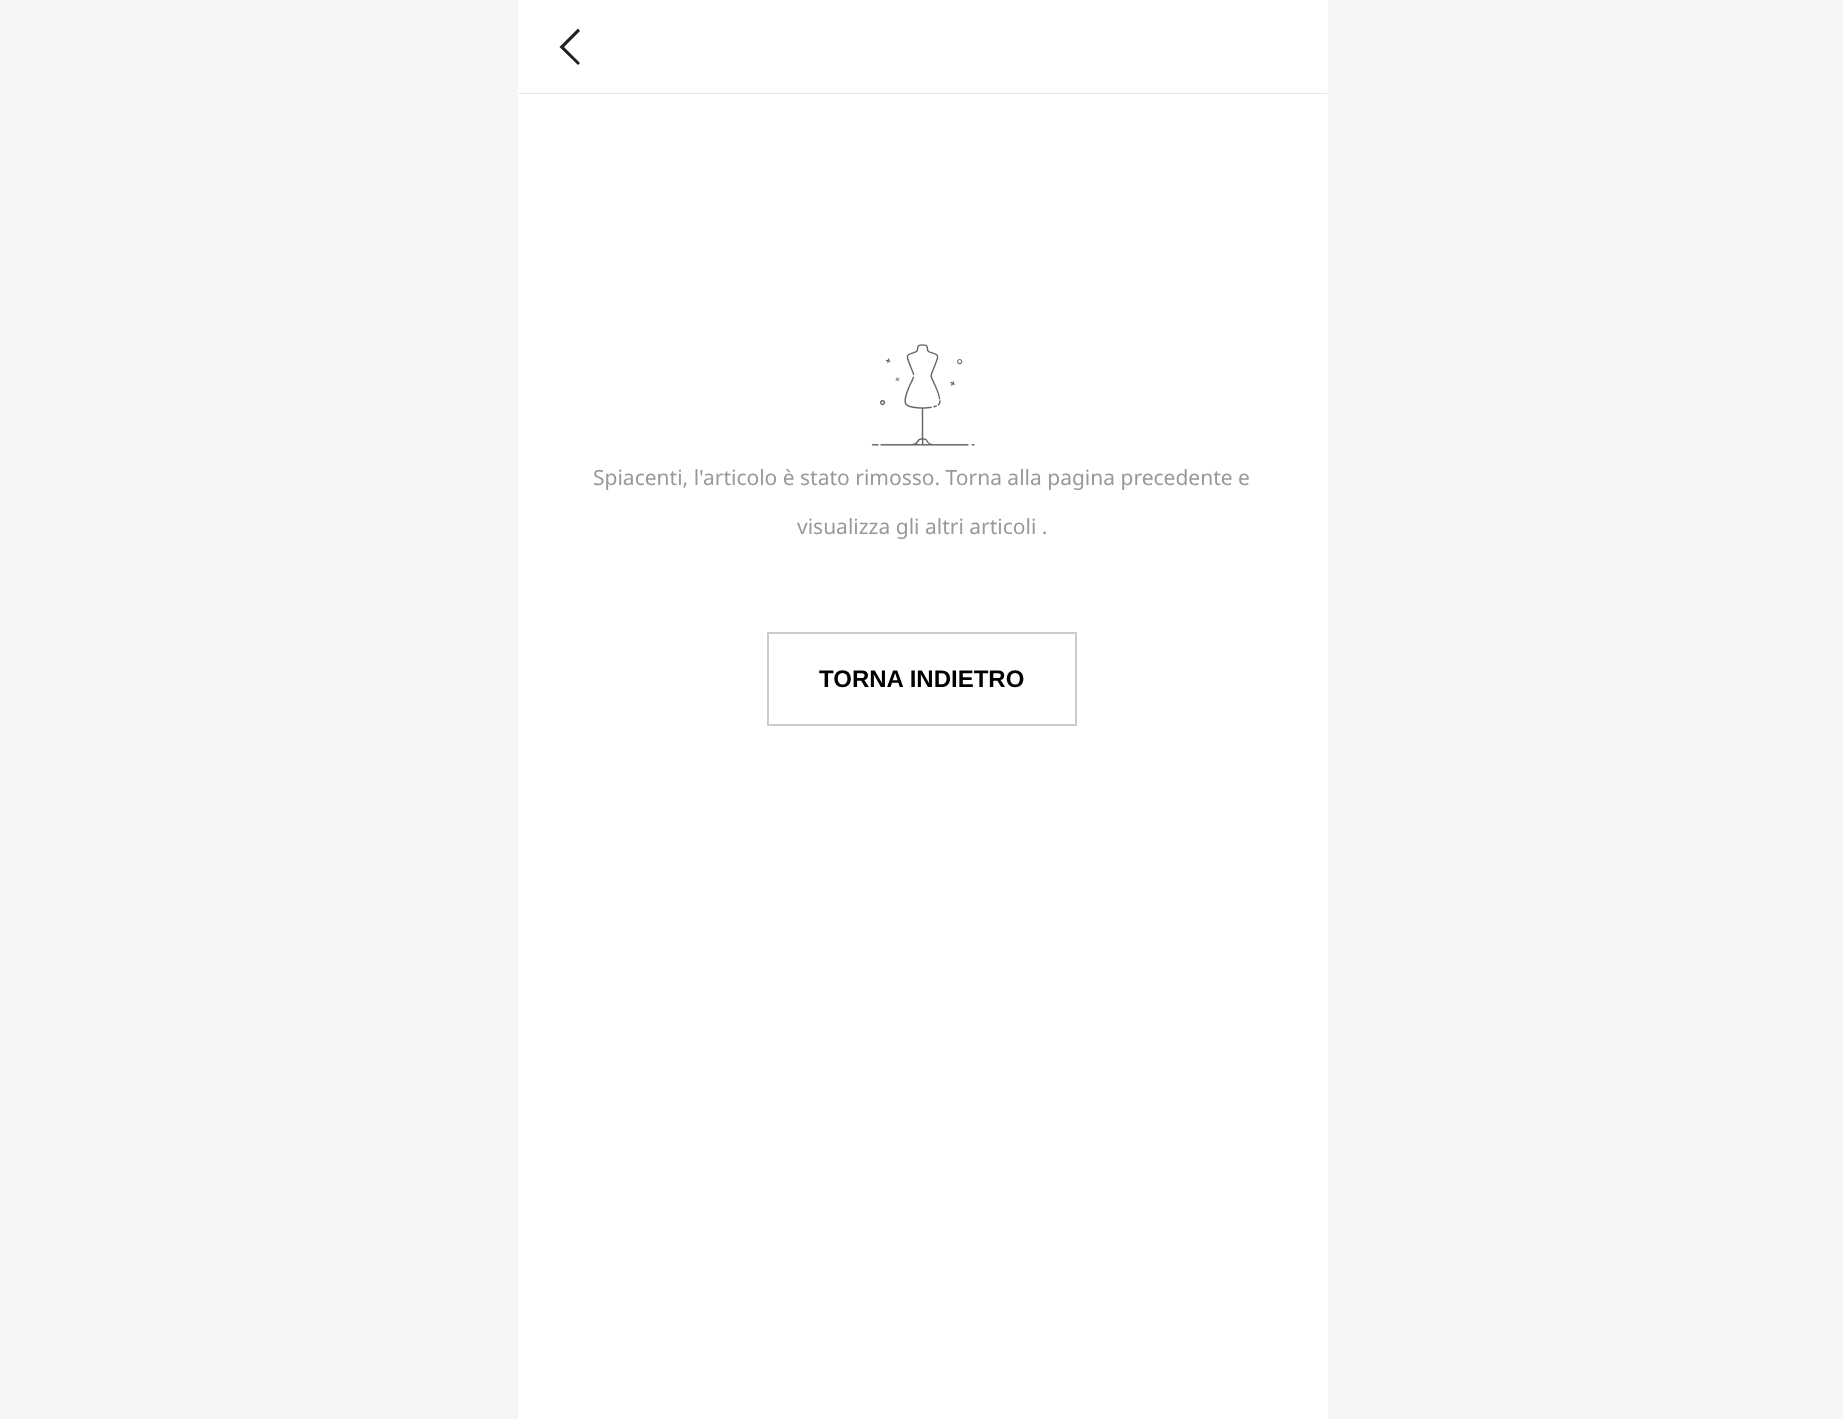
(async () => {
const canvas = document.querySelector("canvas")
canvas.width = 1843
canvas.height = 1419
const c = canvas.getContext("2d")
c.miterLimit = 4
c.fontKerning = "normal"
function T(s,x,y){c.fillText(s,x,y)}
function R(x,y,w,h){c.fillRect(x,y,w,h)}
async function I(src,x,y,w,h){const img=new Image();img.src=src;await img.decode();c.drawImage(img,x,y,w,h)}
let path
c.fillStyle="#f6f6f6"
R(0,0,1843,1419)
c.fillStyle="#fff"
R(518,0,810,1419)
c.fillStyle="#e5e5e5"
path = new Path2D("M1328 94h-810l1-1h807z")
c.fill(path)
c.fillStyle="#222"
path = new Path2D("M559.5 47l18.5-18.5l2 2.5l-16 16l16 16l-2 2z")
c.fill(path)
await I("1.png",871,344,104,102)
c.font="21px Noto Sans"
c.fillStyle="#999"
T("Spiacenti, l'articolo è stato rimosso. Torna alla pagina precedente e",593,485)
T("visualizza gli altri articoli .",797,534)
c.strokeStyle="#ccc"
c.lineWidth=2
c.strokeRect(768,633,308,92)
c.font="bold 24px Liberation Sans"
c.fillStyle="#000"
T("TORNA INDIETRO",819,687)
})()
